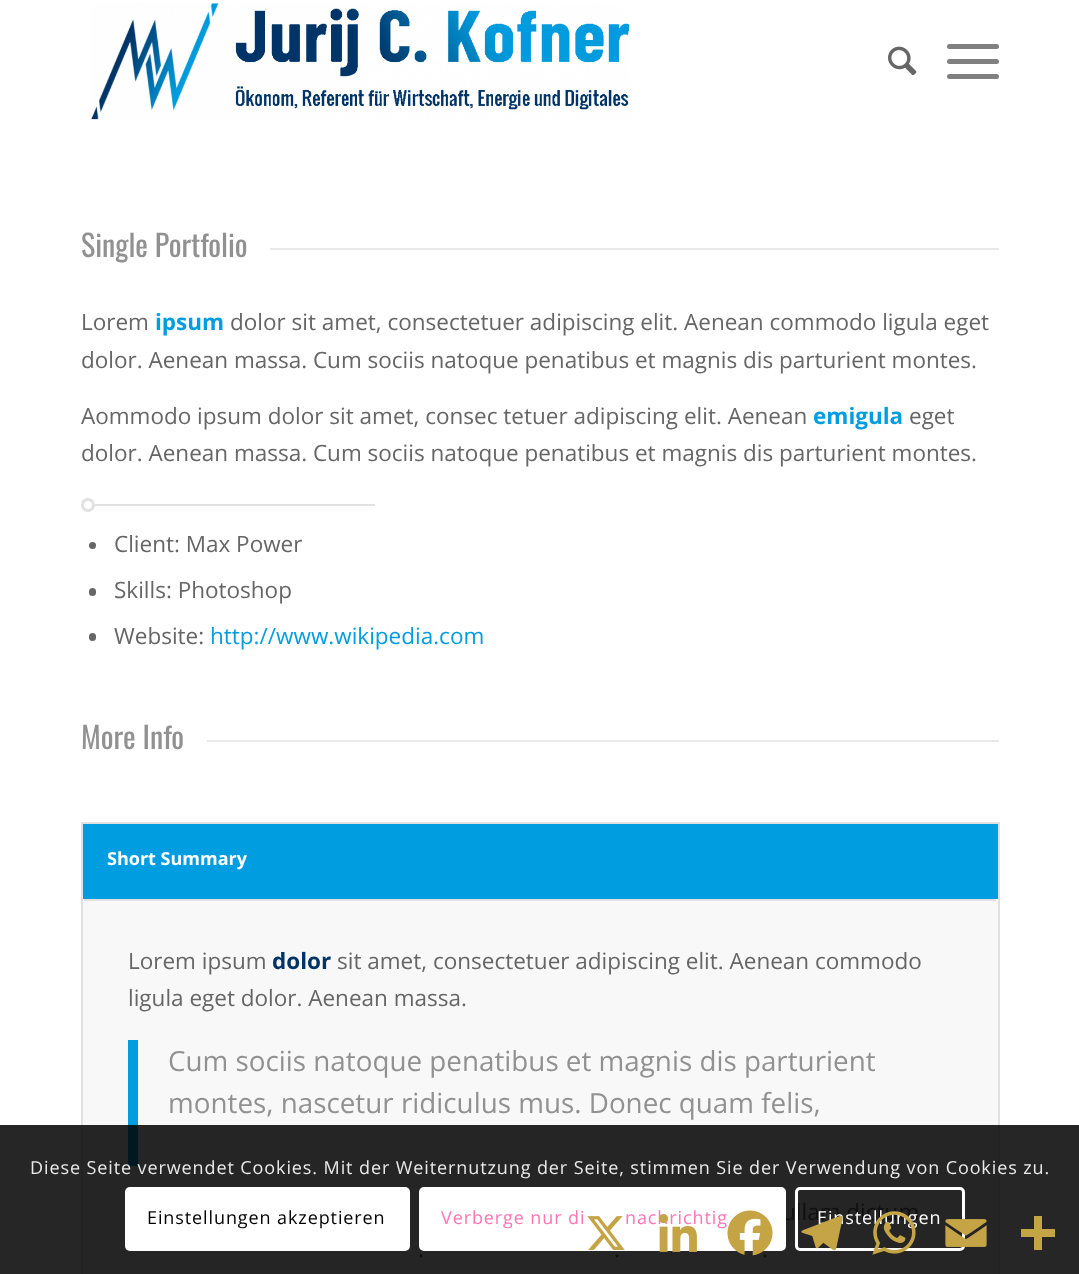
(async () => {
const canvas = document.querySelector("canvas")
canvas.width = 1079
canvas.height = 1274
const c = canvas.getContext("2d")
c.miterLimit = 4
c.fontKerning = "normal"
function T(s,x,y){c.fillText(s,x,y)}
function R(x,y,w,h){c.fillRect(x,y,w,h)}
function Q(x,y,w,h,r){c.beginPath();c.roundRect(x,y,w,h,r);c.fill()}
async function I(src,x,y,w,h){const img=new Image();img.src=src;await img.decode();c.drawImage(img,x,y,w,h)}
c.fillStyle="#fff"
R(0,0,1079,1274)
await I("1.png",91,3,539,117)
await I("2.png",888,46,29,30)
c.fillStyle="#808080"
Q(947,59,52,5,2.5)
Q(947,44,52,5,2.5)
Q(947,74,52,5,2.5)
c.fillStyle="#262626"
R(0,1125,1079,149)
c.font="30px Oswald"
c.fillStyle="#919191"
T("Single Portfolio",81,257)
c.fillStyle="#e9e9e9"
R(270,248,729,2)
c.font="22.5px Open Sans"
c.fillStyle="#666"
T("Lorem",81,330)
c.font="bold 22.5px Open Sans"
c.fillStyle="#009de0"
T("ipsum",155,330)
c.font="22.5px Open Sans"
c.fillStyle="#666"
T("dolor sit amet, consectetuer adipiscing elit. Aenean commodo ligula eget",230,330)
T("dolor. Aenean massa. Cum sociis natoque penatibus et magnis dis parturient montes.",81,368)
T("Aommodo ipsum dolor sit amet, consec tetuer adipiscing elit. Aenean",81,424)
c.font="bold 22.5px Open Sans"
c.fillStyle="#009de0"
T("emigula",813,424)
c.font="22.5px Open Sans"
c.fillStyle="#666"
T("eget",909,424)
T("dolor. Aenean massa. Cum sociis natoque penatibus et magnis dis parturient montes.",81,461)
c.fillStyle="#e1e1e1"
R(81,504,294,2)
c.fillStyle="#fff"
c.beginPath()
c.arc(88,505,5.5,0,7)
c.fill()
c.strokeStyle="#e1e1e1"
c.lineWidth=3
c.stroke()
c.fillStyle="#666"
c.beginPath()
c.arc(92.5,545.5,3.5,0,7)
c.fill()
T("Client: Max Power",114,552)
Q(89,588,7,8,3.5)
T("Skills: Photoshop",114,598)
Q(89,633,7,8,3.5)
T("Website:",114,644)
c.fillStyle="#009de0"
T("http://www.wikipedia.com",210,644)
c.font="30px Oswald"
c.fillStyle="#919191"
T("More Info",81,749)
c.fillStyle="#e9e9e9"
R(207,740,792,2)
c.fillStyle="#e1e1e1"
R(998,822,2,303)
c.fillStyle="#222"
R(998,1125,2,149)
c.fillStyle="#e1e1e1"
R(81,822,2,303)
c.fillStyle="#222"
R(81,1125,2,149)
c.fillStyle="#009de0"
R(83,824,915,75)
c.fillStyle="#e1e1e1"
R(83,822,915,2)
c.font="bold 18px Open Sans"
c.fillStyle="#fff"
T("Short Summary",107,865)
c.fillStyle="#f8f8f8"
Q(83,899,915,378,3)
c.fillStyle="#252525"
R(83,1125,915,149)
c.fillStyle="#e1e1e1"
R(84,899,912,2)
c.font="22.5px Open Sans"
c.fillStyle="#666"
T("Lorem ipsum",128,969)
c.font="bold 22.5px Open Sans"
c.fillStyle="#036"
T("dolor",272,969)
c.font="22.5px Open Sans"
c.fillStyle="#666"
T("sit amet, consectetuer adipiscing elit. Aenean commodo",337,969)
T("ligula eget dolor. Aenean massa.",128,1006)
c.fillStyle="#009de0"
R(128,1040,10,85)
c.fillStyle="#001822"
R(128,1125,10,41)
c.font="27.8px Open Sans"
c.fillStyle="#919191"
T("Cum sociis natoque penatibus et magnis dis parturient",168,1071)
T("montes, nascetur ridiculus mus. Donec quam felis,",168,1113)
c.font="22.5px Open Sans"
c.fillStyle="#0f0f0f"
T("ullam dictum",782,1220)
T(".",418,1257)
T(".",614,1257)
T(".",762,1257)
c.letterSpacing="0.9px"
c.font="18px Open Sans"
c.fillStyle="#e9e9e9"
T("Diese Seite verwendet Cookies. Mit der Weiternutzung der Seite, stimmen Sie der Verwendung von Cookies zu.",30,1174)
c.fillStyle="#fff"
Q(125,1187,285,64,5)
c.fillStyle="#000"
T("Einstellungen akzeptieren",147,1224)
c.fillStyle="#fff"
c.beginPath()
c.roundRect(420.5,1188.5,364,61,3.5)
c.fill()
c.strokeStyle="#fff"
c.stroke()
c.fillStyle="#ff75b5"
T("Verberge nur di",441,1224)
T("nachrichtig",625,1224)
c.beginPath()
c.roundRect(796.5,1188.5,167,61,3.5)
c.stroke()
c.fillStyle="#fff"
T("Einstellungen",817,1224)
await I("3.png",587,1216,38,34)
await I("4.png",659,1214,38,38)
await I("5.png",727,1210,46,46)
await I("6.png",801,1215,42,36)
await I("7.png",872,1211,44,44)
await I("8.png",945,1219,42,28)
c.fillStyle="#c5a446"
R(1034,1216,8,34)
R(1021,1229,34,8)
})()
